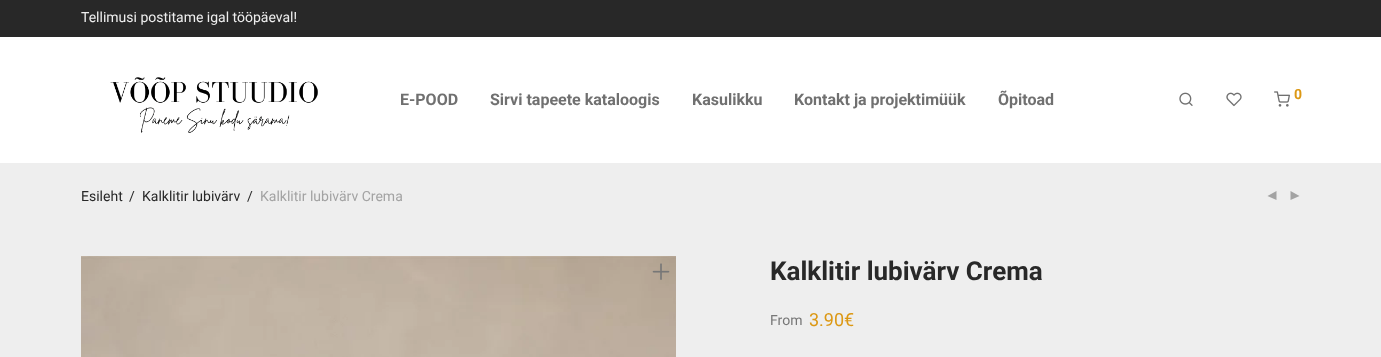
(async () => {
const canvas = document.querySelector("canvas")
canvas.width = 1381
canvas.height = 357
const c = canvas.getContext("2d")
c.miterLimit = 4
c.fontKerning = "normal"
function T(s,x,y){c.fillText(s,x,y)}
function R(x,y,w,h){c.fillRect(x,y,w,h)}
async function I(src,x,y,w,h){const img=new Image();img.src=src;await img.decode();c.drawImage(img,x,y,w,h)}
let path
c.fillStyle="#eee"
R(0,0,1381,357)
c.fillStyle="#282828"
R(0,0,1381,37)
c.font="14px Roboto"
c.fillStyle="#eee"
T("Tellimusi postitame igal tööpäeval!",81,22)
c.fillStyle="#fff"
R(0,37,1381,126)
await I("1.png",110,77,208,56)
c.font="bold 16px Roboto"
c.fillStyle="#707070"
T("E-POOD",400,105)
T("Sirvi tapeete kataloogis",490,105)
T("Kasulikku",692,105)
T("Kontakt ja projektimüük",794,105)
T("Õpitoad",998,105)
await I("2.png",1179,92,14,14)
await I("3.png",1226,92,16,15)
await I("4.png",1274,91,16,16)
c.font="bold 14px Roboto"
c.fillStyle="#dc9814"
T("0",1294,99)
c.font="14px Roboto"
c.fillStyle="#282828"
T("Esileht",81,201)
T("/",129,201)
T("Kalklitir lubivärv",142,201)
T("/",247,201)
c.fillStyle="#a3a3a3"
T("Kalklitir lubivärv Crema",260,201)
path = new Path2D("M1276.5 191v9l-9-4zm14 0v9l9-4z")
c.fill(path)
await I("5.png",81,256,595,101)
await I("6.png",652,263,18,17)
c.font="bold 26px Roboto"
c.fillStyle="#282828"
T("Kalklitir lubivärv Crema",770,280)
c.font="14px Roboto"
c.fillStyle="#777"
T("From",770,325)
c.font="18px Roboto"
c.fillStyle="#dc9814"
T("3.90€",809,326)
})()
